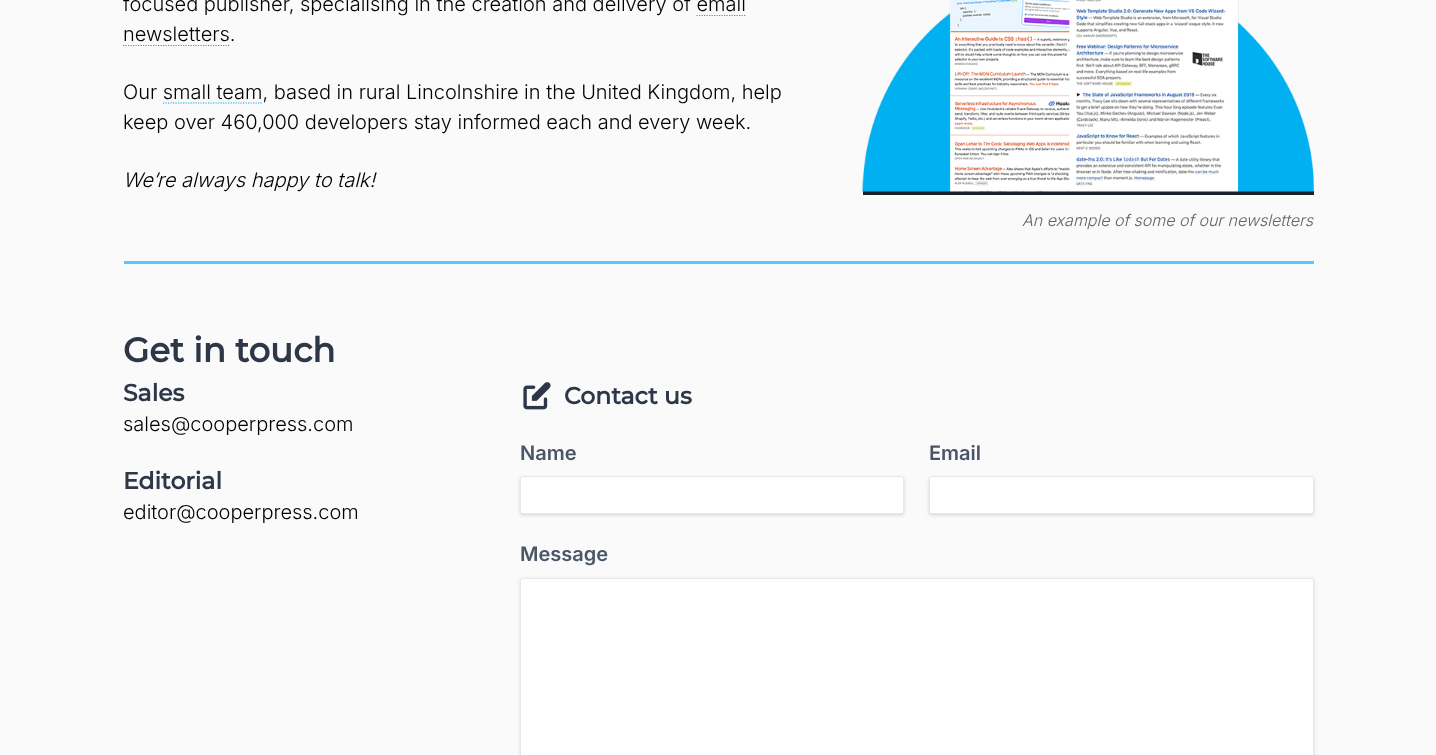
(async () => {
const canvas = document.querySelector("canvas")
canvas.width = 1436
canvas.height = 755
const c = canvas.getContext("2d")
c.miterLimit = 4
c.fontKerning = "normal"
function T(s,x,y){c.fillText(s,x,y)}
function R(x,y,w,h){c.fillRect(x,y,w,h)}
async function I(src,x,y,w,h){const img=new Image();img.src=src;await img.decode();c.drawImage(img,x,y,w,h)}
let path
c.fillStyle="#fafafa"
R(0,0,1436,755)
c.font="300 20px Inter"
c.fillStyle="#000"
T("focused publisher, specialising in the creation and delivery of email",123,11)
T("newsletters.",123,41)
path = new Path2D("M696.5 15.5h49.5")
c.strokeStyle="#00aeef"
c.lineWidth=1.2
c.setLineDash([1.25,1.25])
c.stroke(path)
path = new Path2D("M123 45.5h107")
c.stroke(path)
T("Our small team, based in rural Lincolnshire in the United Kingdom, help",123,99)
path = new Path2D("M163 103h99.5")
c.stroke(path)
T("keep over 460,000 developers stay informed each and every week.",123,129)
c.font="italic 300 20px Inter"
T("We’re always happy to talk!",123,187)
c.fillStyle="#1a202c"
R(863,191,451,4)
await I("1.png",862,0,452,192)
c.font="italic 300 16px Inter"
c.fillStyle="#646464"
T("An example of some of our newsletters",1022,226)
c.fillStyle="#4cccff"
R(124,261,1190,3)
c.font="bold 34px Montserrat"
c.fillStyle="#2d3748"
T("Get in touch",123,362)
c.font="bold 23.5px Montserrat"
T("Sales",123,401)
c.font="300 20px Inter"
c.fillStyle="#000"
T("sales@cooperpress.com",123,431)
c.font="bold 23.5px Montserrat"
c.fillStyle="#2d3748"
T("Editorial",123,489)
c.font="300 20px Inter"
c.fillStyle="#000"
T("editor@cooperpress.com",123,519)
await I("2.png",523,382,28,28)
c.font="bold 23.5px Montserrat"
c.fillStyle="#2d3748"
T("Contact us",564,404)
c.font="600 20px Inter"
c.fillStyle="#4a5568"
T("Name",520,460)
c.fillStyle="#0000000f"
c.filter="blur(1px)"
c.beginPath()
c.roundRect(520,478,384,37,2.5)
c.fill()
c.filter="none"
c.fillStyle="#0000001a"
c.filter="blur(2px)"
c.beginPath()
c.roundRect(520,478,384,37,2.5)
c.fill()
c.filter="none"
c.fillStyle="#fff"
c.beginPath()
c.roundRect(520.5,476.5,383,37,2)
c.fill()
c.strokeStyle="#e2e8f0"
c.lineWidth=1
c.setLineDash([])
c.stroke()
c.fillStyle="#4a5568"
T("Email",929,460)
c.fillStyle="#0000000f"
c.filter="blur(1px)"
c.beginPath()
c.roundRect(929,478,385,37,2.5)
c.fill()
c.filter="none"
c.fillStyle="#0000001a"
c.filter="blur(2px)"
c.beginPath()
c.roundRect(929,478,385,37,2.5)
c.fill()
c.filter="none"
c.fillStyle="#fff"
c.beginPath()
c.roundRect(929.5,476.5,384,37,2)
c.fill()
c.stroke()
c.fillStyle="#4a5568"
T("Message",520,561)
c.fillStyle="#0000001a"
c.filter="blur(2px)"
c.beginPath()
c.roundRect(520,579,794,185,2.5)
c.fill()
c.filter="none"
c.fillStyle="#fff"
c.beginPath()
c.roundRect(520.5,578.5,793,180,2)
c.fill()
c.stroke()
})()
